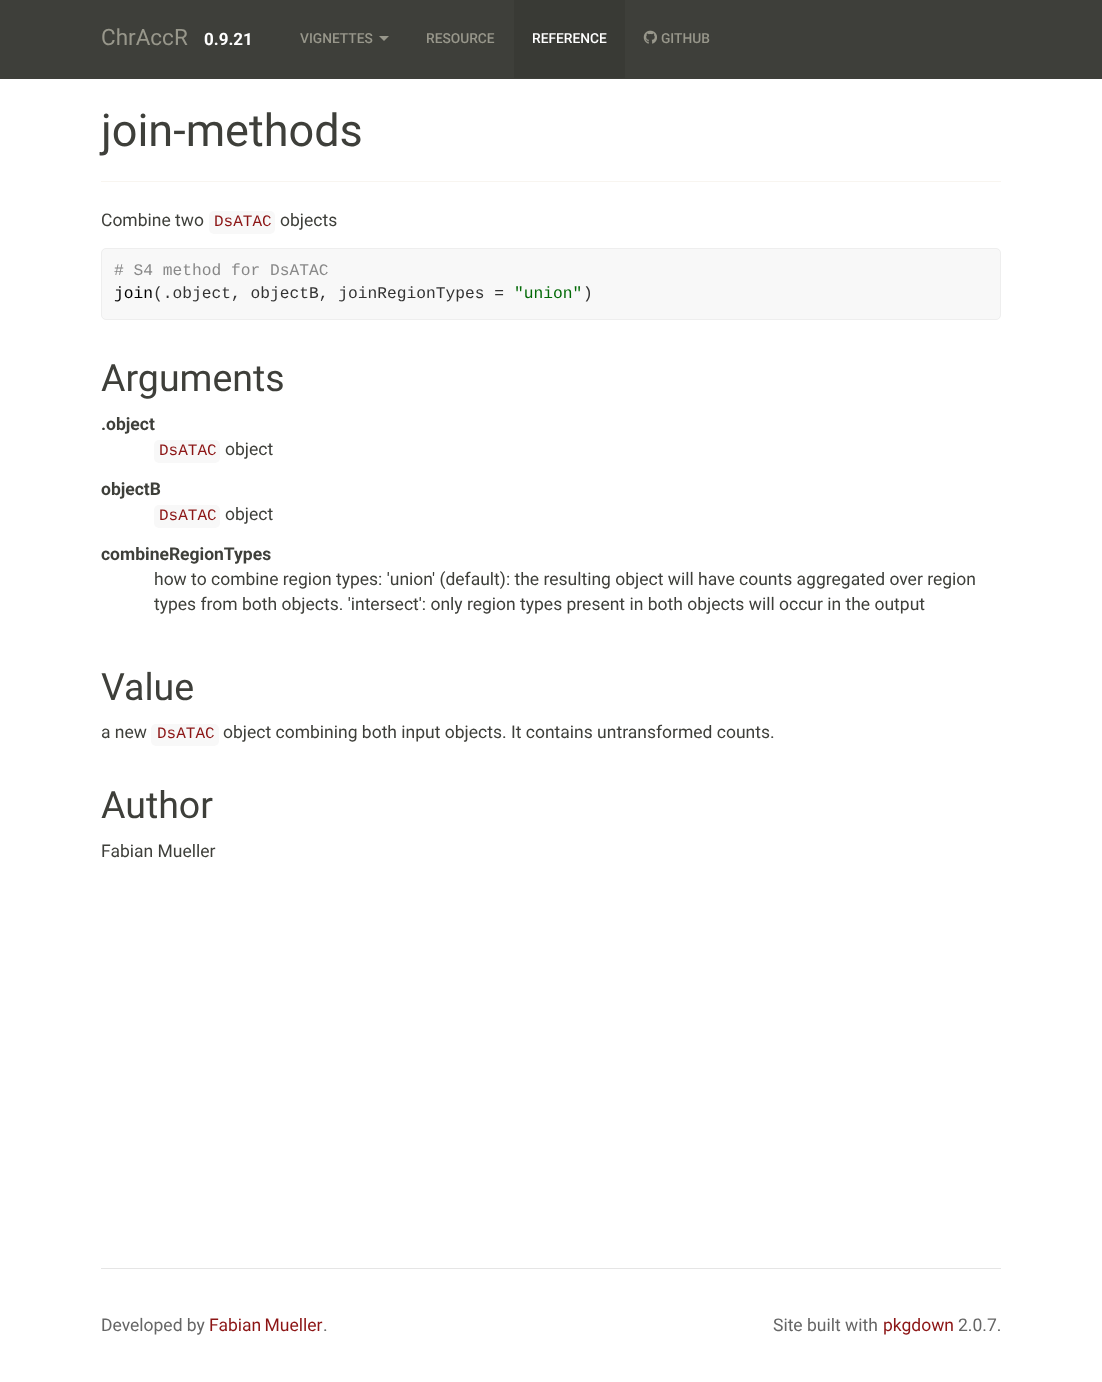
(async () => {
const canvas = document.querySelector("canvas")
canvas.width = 1102
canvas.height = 1382
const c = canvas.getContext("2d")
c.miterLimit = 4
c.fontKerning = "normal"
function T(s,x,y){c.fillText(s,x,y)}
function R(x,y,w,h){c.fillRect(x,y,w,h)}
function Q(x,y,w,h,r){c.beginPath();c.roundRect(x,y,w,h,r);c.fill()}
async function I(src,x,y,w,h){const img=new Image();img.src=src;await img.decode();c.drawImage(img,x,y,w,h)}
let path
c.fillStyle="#fff"
R(0,0,1102,1382)
c.fillStyle="#3e3f3a"
R(0,0,1102,79)
c.font="22.5px Roboto"
c.fillStyle="#98978b"
T("ChrAccR",101,45)
c.font="bold 17px Roboto"
c.fillStyle="#fff"
T("0.9.21",204,45)
c.font="500 13.75px Roboto"
c.fillStyle="#98978b"
T("VIGNETTES",300,43)
path = new Path2D("M379 36h10l-5 5z")
c.fill(path)
T("RESOURCE",426,43)
c.fillStyle="#393a35"
R(514,0,111,78)
c.fillStyle="#fff"
T("REFERENCE",532,43)
await I("1.png",643,30,14,14)
c.fillStyle="#98978b"
T("GITHUB",661,43)
c.fillStyle="#f8f5f0"
R(101,181,900,1)
c.font="45px Roboto"
c.fillStyle="#3e3f3a"
T("join-methods",101,146)
c.font="17.5px Roboto"
T("Combine two",101,226)
c.fillStyle="#f8f8f8"
Q(209,211,66,23,5)
c.font="16px Liberation Mono"
c.fillStyle="#8c1515"
T("DsATAC",214,226)
c.font="17.5px Roboto"
c.fillStyle="#3e3f3a"
T("objects",280,226)
c.fillStyle="#f8f8f8"
c.beginPath()
c.roundRect(101.5,248.5,899,71,4.5)
c.fill()
c.strokeStyle="#eee"
c.stroke()
c.font="16.25px Liberation Mono"
c.fillStyle="#888"
T("# S4 method for DsATAC",114,275)
c.fillStyle="#000"
T("join",114,298)
c.fillStyle="#333"
T("(.object, objectB, joinRegionTypes =",153,298)
c.fillStyle="#036a07"
T("\"union\"",514,298)
c.fillStyle="#333"
T(")",583,298)
c.font="37.5px Roboto"
c.fillStyle="#3e3f3a"
T("Arguments",101,391)
c.font="bold 17.5px Roboto"
T(".object",101,430)
c.fillStyle="#f8f8f8"
Q(154,440,66,23,5)
c.font="16px Liberation Mono"
c.fillStyle="#8c1515"
T("DsATAC",159,455)
c.font="17.5px Roboto"
c.fillStyle="#3e3f3a"
T("object",225,455)
c.font="bold 17.5px Roboto"
T("objectB",101,495)
c.fillStyle="#f8f8f8"
Q(154,505,66,23,5)
c.font="16px Liberation Mono"
c.fillStyle="#8c1515"
T("DsATAC",159,520)
c.font="17.5px Roboto"
c.fillStyle="#3e3f3a"
T("object",225,520)
c.font="bold 17.5px Roboto"
T("combineRegionTypes",101,560)
c.font="17.5px Roboto"
T("how to combine region types: 'union' (default): the resulting object will have counts aggregated over region",154,585)
T("types from both objects. 'intersect': only region types present in both objects will occur in the output",154,610)
c.font="37.5px Roboto"
T("Value",101,700)
c.font="17.5px Roboto"
T("a new",101,738)
c.fillStyle="#f8f8f8"
Q(151,724,68,22,5)
c.font="16px Liberation Mono"
c.fillStyle="#8c1515"
T("DsATAC",157,738)
c.font="17.5px Roboto"
c.fillStyle="#3e3f3a"
T("object combining both input objects. It contains untransformed counts.",223,738)
c.font="37.5px Roboto"
T("Author",101,818)
c.font="17.5px Roboto"
T("Fabian Mueller",101,857)
c.fillStyle="#e5e5e5"
R(101,1268,900,1)
c.fillStyle="#666"
T("Developed by",101,1331)
c.wordSpacing="-1px"
c.fillStyle="#8c1515"
T("Fabian Mueller",209,1331)
c.wordSpacing="0px"
c.fillStyle="#666"
T(".",323,1331)
T("Site built with",773,1331)
c.fillStyle="#8c1515"
T("pkgdown",883,1331)
c.fillStyle="#666"
T("2.0.7.",958,1331)
})()
